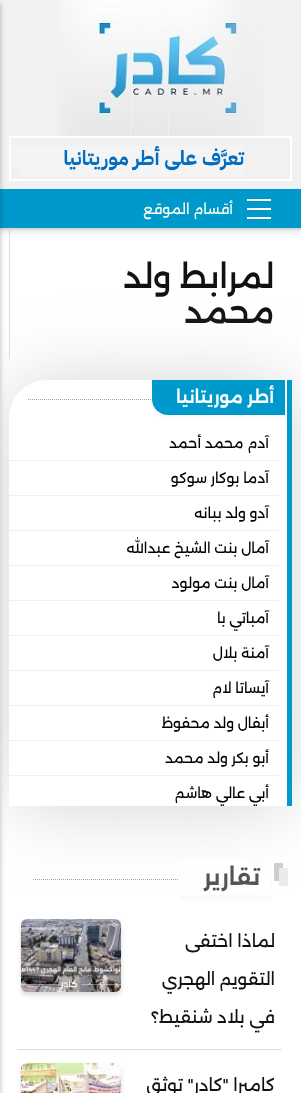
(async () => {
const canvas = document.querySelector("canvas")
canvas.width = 301
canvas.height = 1093
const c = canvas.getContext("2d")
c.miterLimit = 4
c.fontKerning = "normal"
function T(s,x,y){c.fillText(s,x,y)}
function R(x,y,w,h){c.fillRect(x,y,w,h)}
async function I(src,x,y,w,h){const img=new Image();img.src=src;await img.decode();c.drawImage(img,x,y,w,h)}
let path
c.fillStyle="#fff"
R(0,0,301,1093)
c.fillStyle="#f1f1f1"
R(0,0,301,189)
await I("1.png",57,0,207,136)
c.strokeStyle="#fff"
c.lineWidth=2
c.strokeRect(10,137,281,43)
await I("2.png",13,146,232,31)
c.fillStyle="#ddd"
R(9,230,1,129)
c.fillStyle="#b6b6b64d"
c.filter="blur(2px)"
c.beginPath()
c.rect(0,192,301,41)
c.fill()
c.filter="none"
c.fillStyle="#09c"
R(0,189,301,39)
c.fillStyle="#dadada"
R(0,228,301,2)
c.fillStyle="#fff"
R(247,199,24,2)
c.direction="rtl"
c.font="14px Alexandria"
c.fillStyle="#fdffed"
T("أقسام الموقع",233,214)
c.fillStyle="#fff"
R(247,208,24,2)
R(247,217,24,2)
c.fillStyle="#00000033"
c.filter="blur(2px)"
c.beginPath()
c.rect(-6,3,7,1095)
c.fill()
c.filter="none"
c.font="500 32px Alexandria"
c.fillStyle="#111"
T("لمرابط ولد",274,288)
T("محمد",274,323)
await I("3.png",28,399,125,1)
await I("5.png",33,879,146,1)
c.save()
path = new Path2D("M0 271h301v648h-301zm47 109h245v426h-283v-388c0-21 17-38 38-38z")
c.clip(path,"evenodd")
c.fillStyle="#d4d4d4"
c.filter="blur(36.5px)"
c.beginPath()
c.roundRect(10,382,283,426,38)
c.fill()
c.filter="none"
c.restore()
c.fillStyle="#09c"
R(287,380,5,426)
c.fillStyle="#fdfcfc"
path = new Path2D("M153 405c0 9 7 16 16 16h117v-35h-1v29h-117c-7 0-13-4-15-10z")
c.fill(path)
c.fillStyle="#09c"
c.beginPath()
c.roundRect(152,380,133,35,[0,0,0,16])
c.fill()
c.font="600 17px Alexandria"
c.fillStyle="#fff"
T("أطر موريتانيا",274,403)
c.fillStyle="#efefef"
R(9,460,270,1)
c.font="14px Alexandria"
c.fillStyle="#000"
T("آدم محمد أحمد",269,448)
c.fillStyle="#efefef"
R(9,495,270,1)
c.fillStyle="#000"
T("آدما بوكار سوكو",269,483)
c.fillStyle="#efefef"
R(9,530,270,1)
c.fillStyle="#000"
T("آدو ولد ببانه",269,518)
c.fillStyle="#efefef"
R(9,565,270,1)
c.fillStyle="#000"
T("آمال بنت الشيخ عبدالله",269,553)
c.fillStyle="#efefef"
R(9,600,270,1)
c.fillStyle="#000"
T("آمال بنت مولود",269,588)
c.fillStyle="#efefef"
R(9,635,270,1)
c.fillStyle="#000"
T("آمباتي با",269,623)
c.fillStyle="#efefef"
R(9,670,270,1)
c.fillStyle="#000"
T("آمنة بلال",269,658)
c.fillStyle="#efefef"
R(9,705,270,1)
c.fillStyle="#000"
T("آيساتا لام",269,693)
c.fillStyle="#efefef"
R(9,740,270,1)
c.fillStyle="#000"
T("أبفال ولد محفوظ",269,728)
c.fillStyle="#efefef"
R(9,775,270,1)
c.fillStyle="#000"
T("أبو بكر ولد محمد",269,763)
T("أبي عالي هاشم",269,798)
await I("4.png",271,862,18,25)
c.fillStyle="#fcfbfc"
path = new Path2D("M180 895v6h92v-35h-1v29z")
c.fill(path)
c.fillStyle="#fff"
R(179,860,69,5)
c.font="600 23px Alexandria"
c.fillStyle="#585252"
T("تقارير",260,885)
c.fillStyle="#ddd"
R(17,1049,265,1)
c.font="17px Alexandria"
c.fillStyle="#111"
T("لماذا اختفى",275,947)
T("التقويم الهجري",275,985)
T("في بلاد شنقيط؟",275,1023)
c.fillStyle="#8c82824d"
c.filter="blur(2px)"
c.beginPath()
c.roundRect(21,922,100,73,6)
c.fill()
c.filter="none"
await I("6.png",21,919,100,73)
c.fillStyle="#111"
T("كاميرا \"كادر\" توثق",275,1091)
c.fillStyle="#8c82824d"
c.filter="blur(2px)"
c.beginPath()
c.roundRect(21,1066,100,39,6)
c.fill()
c.filter="none"
await I("7.png",21,1063,100,30)
})()
